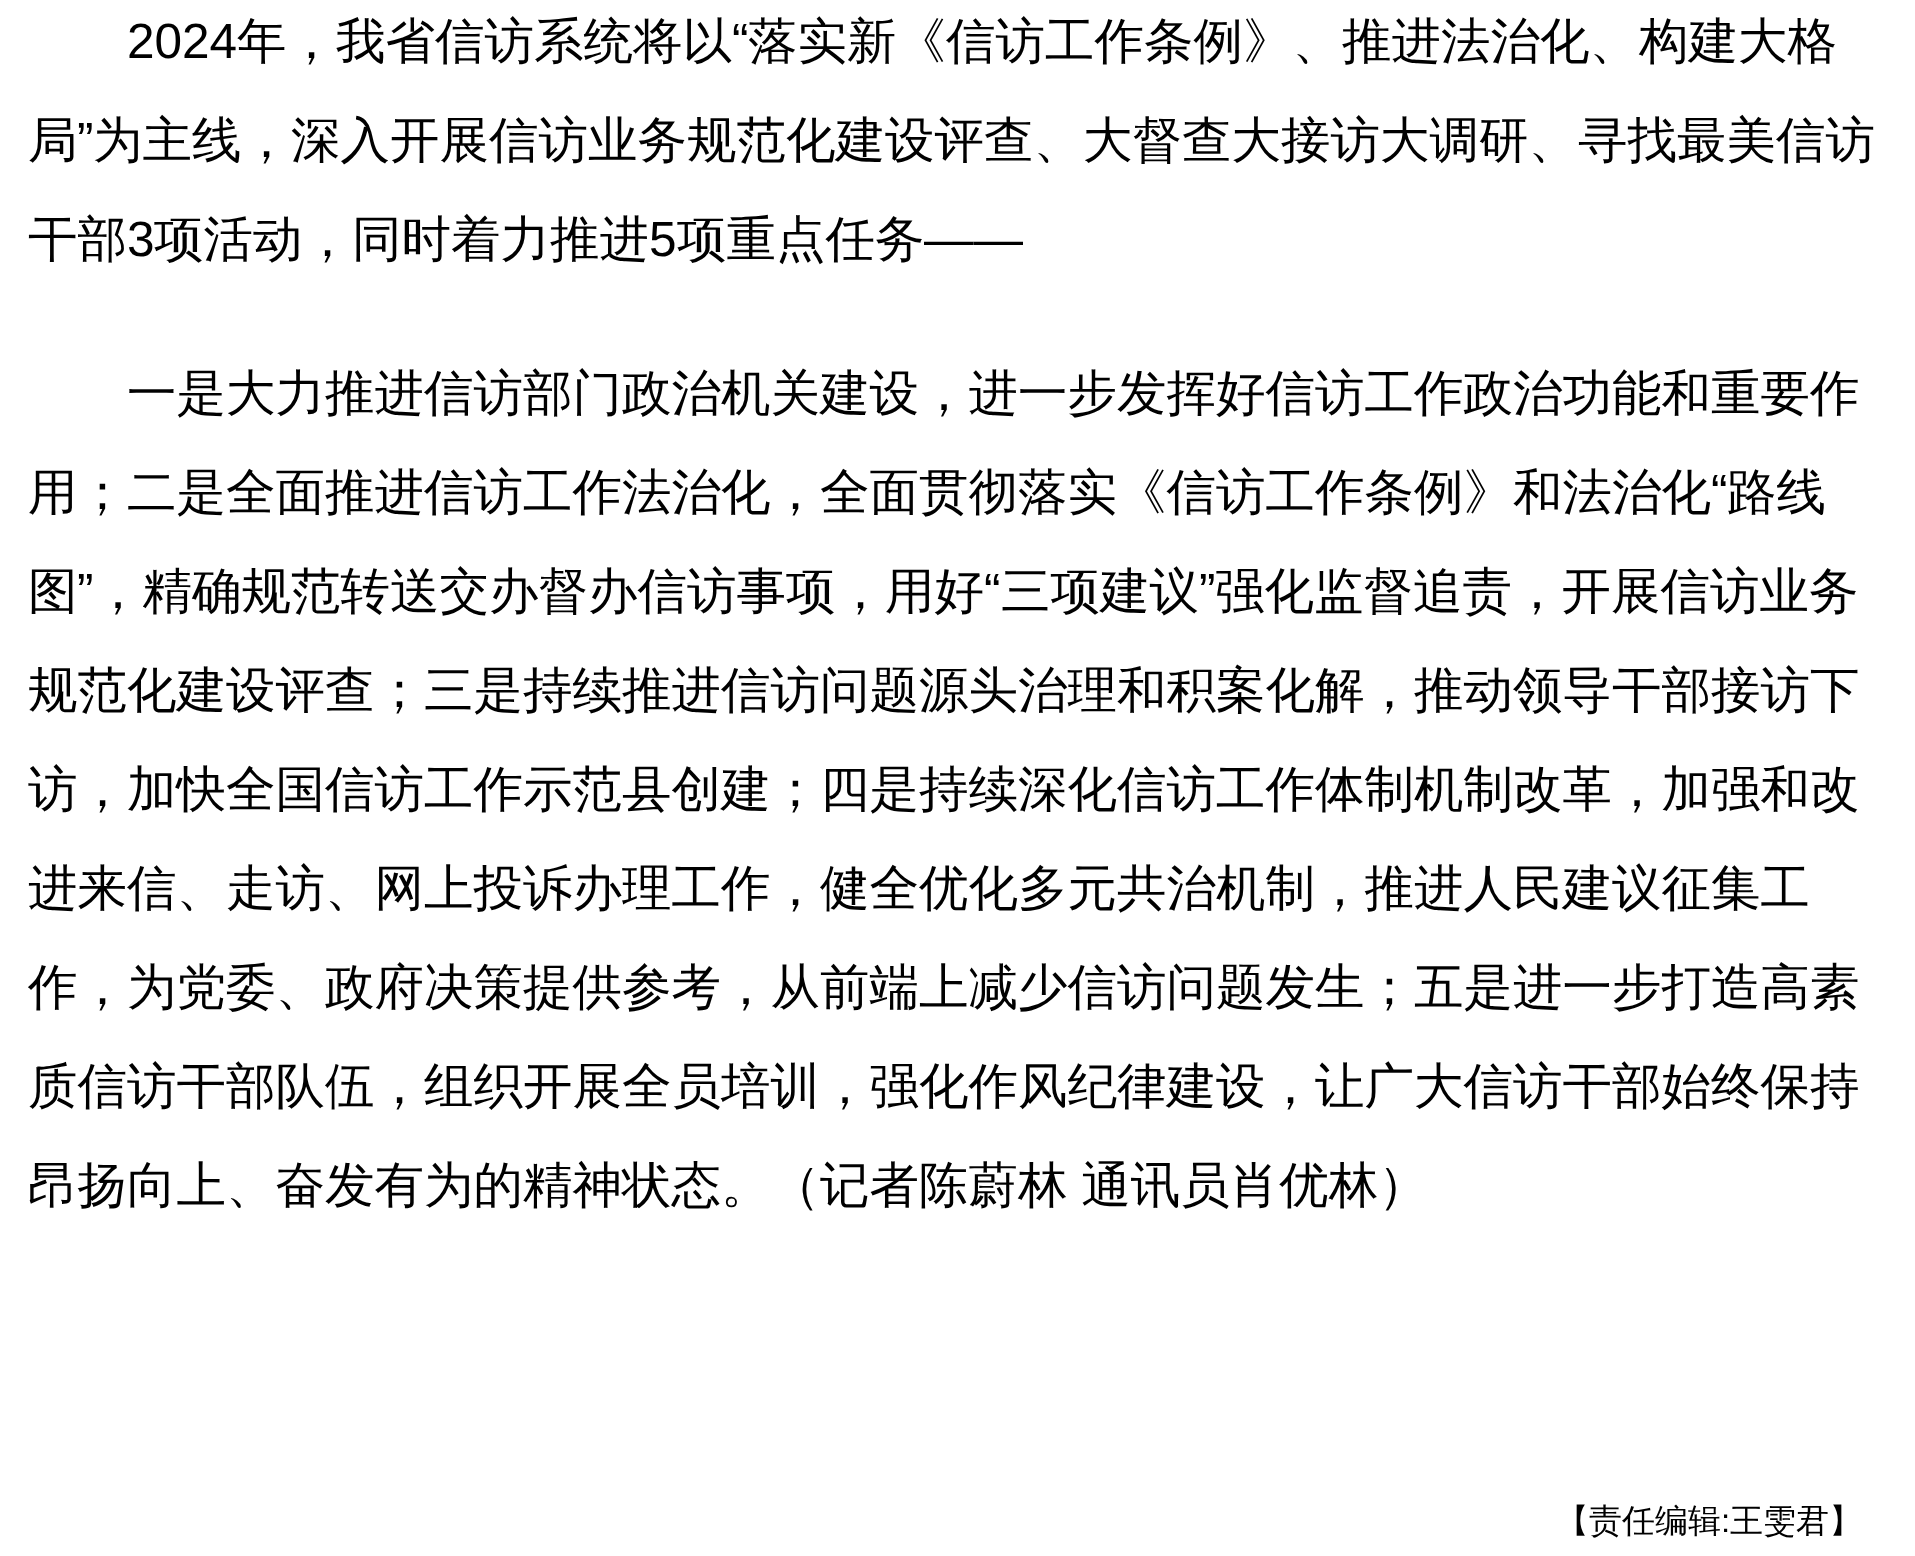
(async () => {
const canvas = document.querySelector("canvas")
canvas.width = 1915
canvas.height = 1556
const c = canvas.getContext("2d")
c.miterLimit = 4
c.fontKerning = "normal"
function T(s,x,y){c.fillText(s,x,y)}
function R(x,y,w,h){c.fillRect(x,y,w,h)}
c.fillStyle="#fff"
R(0,0,1915,1556)
c.font="49.5px Liberation Sans"
c.fillStyle="#000"
T("2024",127,58)
c.font="500 49.5px WenQuanYi Zen Hei"
T("年，我省信访系统将以",237,58)
c.font="49.5px Liberation Sans"
T("“",732,58)
c.font="500 49.5px WenQuanYi Zen Hei"
T("落实新《信访工作条例》、推进法治化、构建大格",748,58)
T("局",28,157)
c.font="49.5px Liberation Sans"
T("”",77,157)
c.font="500 49.5px WenQuanYi Zen Hei"
T("为主线，深入开展信访业务规范化建设评查、大督查大接访大调研、寻找最美信访",93,157)
T("干部",28,256)
c.font="49.5px Liberation Sans"
T("3",127,256)
c.font="500 49.5px WenQuanYi Zen Hei"
T("项活动，同时着力推进",154,256)
c.font="49.5px Liberation Sans"
T("5",649,256)
c.font="500 49.5px WenQuanYi Zen Hei"
T("项重点任务",677,256)
c.font="49.5px Liberation Sans"
T("——",924,256)
c.font="500 49.5px WenQuanYi Zen Hei"
T("一是大力推进信访部门政治机关建设，进一步发挥好信访工作政治功能和重要作",127,410)
T("用；二是全面推进信访工作法治化，全面贯彻落实《信访工作条例》和法治化",28,509)
c.font="49.5px Liberation Sans"
T("“",1711,509)
c.font="500 49.5px WenQuanYi Zen Hei"
T("路线",1727,509)
T("图",28,608)
c.font="49.5px Liberation Sans"
T("”",77,608)
c.font="500 49.5px WenQuanYi Zen Hei"
T("，精确规范转送交办督办信访事项，用好",93,608)
c.font="49.5px Liberation Sans"
T("“",984,608)
c.font="500 49.5px WenQuanYi Zen Hei"
T("三项建议",1001,608)
c.font="49.5px Liberation Sans"
T("”",1199,608)
c.font="500 49.5px WenQuanYi Zen Hei"
T("强化监督追责，开展信访业务",1215,608)
T("规范化建设评查；三是持续推进信访问题源头治理和积案化解，推动领导干部接访下",28,707)
T("访，加快全国信访工作示范县创建；四是持续深化信访工作体制机制改革，加强和改",28,806)
T("进来信、走访、网上投诉办理工作，健全优化多元共治机制，推进人民建议征集工",28,905)
T("作，为党委、政府决策提供参考，从前端上减少信访问题发生；五是进一步打造高素",28,1004)
T("质信访干部队伍，组织开展全员培训，强化作风纪律建设，让广大信访干部始终保持",28,1103)
c.wordSpacing="-1px"
T("昂扬向上、奋发有为的精神状态。（记者陈蔚林 通讯员肖优林）",28,1202)
c.wordSpacing="0px"
c.font="500 33px WenQuanYi Zen Hei"
T("【责任编辑",1556,1532)
c.font="33px Liberation Sans"
T(":",1721,1532)
c.font="500 33px WenQuanYi Zen Hei"
T("王雯君】",1730,1532)
})()
